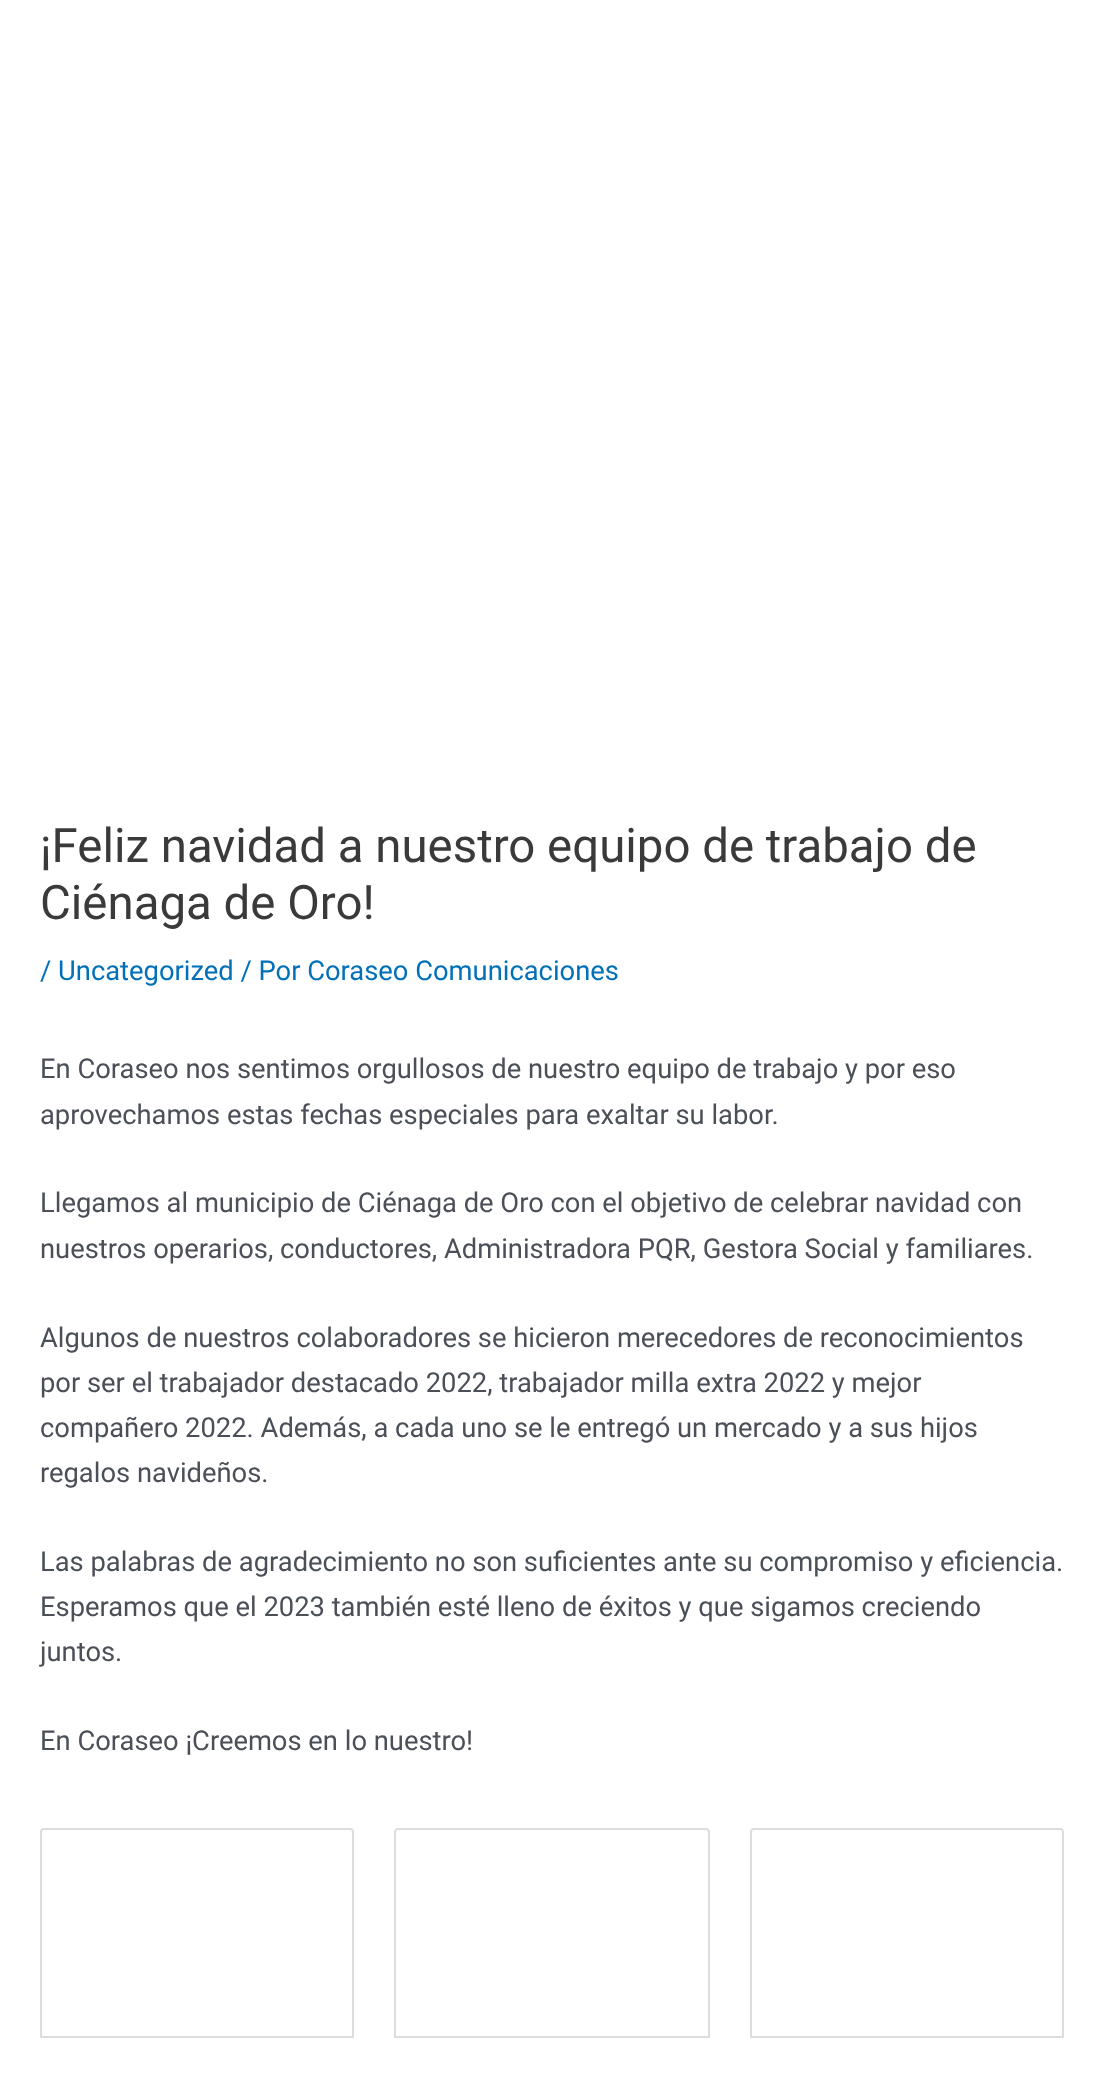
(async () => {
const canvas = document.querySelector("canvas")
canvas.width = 1103
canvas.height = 2074
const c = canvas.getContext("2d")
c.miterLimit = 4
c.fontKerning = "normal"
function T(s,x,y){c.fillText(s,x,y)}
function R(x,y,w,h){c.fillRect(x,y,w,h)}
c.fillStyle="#fff"
R(0,0,1103,2074)
c.font="47.4px Roboto"
c.fillStyle="#3a3a3a"
T("¡Feliz navidad a nuestro equipo de trabajo de",40,862)
T("Ciénaga de Oro!",40,919)
c.font="27.35px Roboto"
c.fillStyle="#0170b9"
T("/ Uncategorized / Por Coraseo Comunicaciones",40,980)
c.fillStyle="#4b4f58"
T("En Coraseo nos sentimos orgullosos de nuestro equipo de trabajo y por eso",40,1078)
T("aprovechamos estas fechas especiales para exaltar su labor.",40,1124)
T("Llegamos al municipio de Ciénaga de Oro con el objetivo de celebrar navidad con",40,1212)
T("nuestros operarios, conductores, Administradora PQR, Gestora Social y familiares.",40,1258)
T("Algunos de nuestros colaboradores se hicieron merecedores de reconocimientos",40,1347)
T("por ser el trabajador destacado 2022, trabajador milla extra 2022 y mejor",40,1392)
T("compañero 2022. Además, a cada uno se le entregó un mercado y a sus hijos",40,1437)
T("regalos navideños.",40,1482)
T("Las palabras de agradecimiento no son suficientes ante su compromiso y eficiencia.",40,1571)
T("Esperamos que el 2023 también esté lleno de éxitos y que sigamos creciendo",40,1616)
T("juntos.",40,1661)
T("En Coraseo ¡Creemos en lo nuestro!",40,1750)
c.beginPath()
c.roundRect(41,1829,312,208,[3,3,0,0])
c.strokeStyle="#ddd"
c.lineWidth=2
c.stroke()
c.beginPath()
c.roundRect(395,1829,314,208,[3,3,0,0])
c.stroke()
c.beginPath()
c.roundRect(751,1829,312,208,[3,3,0,0])
c.stroke()
})()
